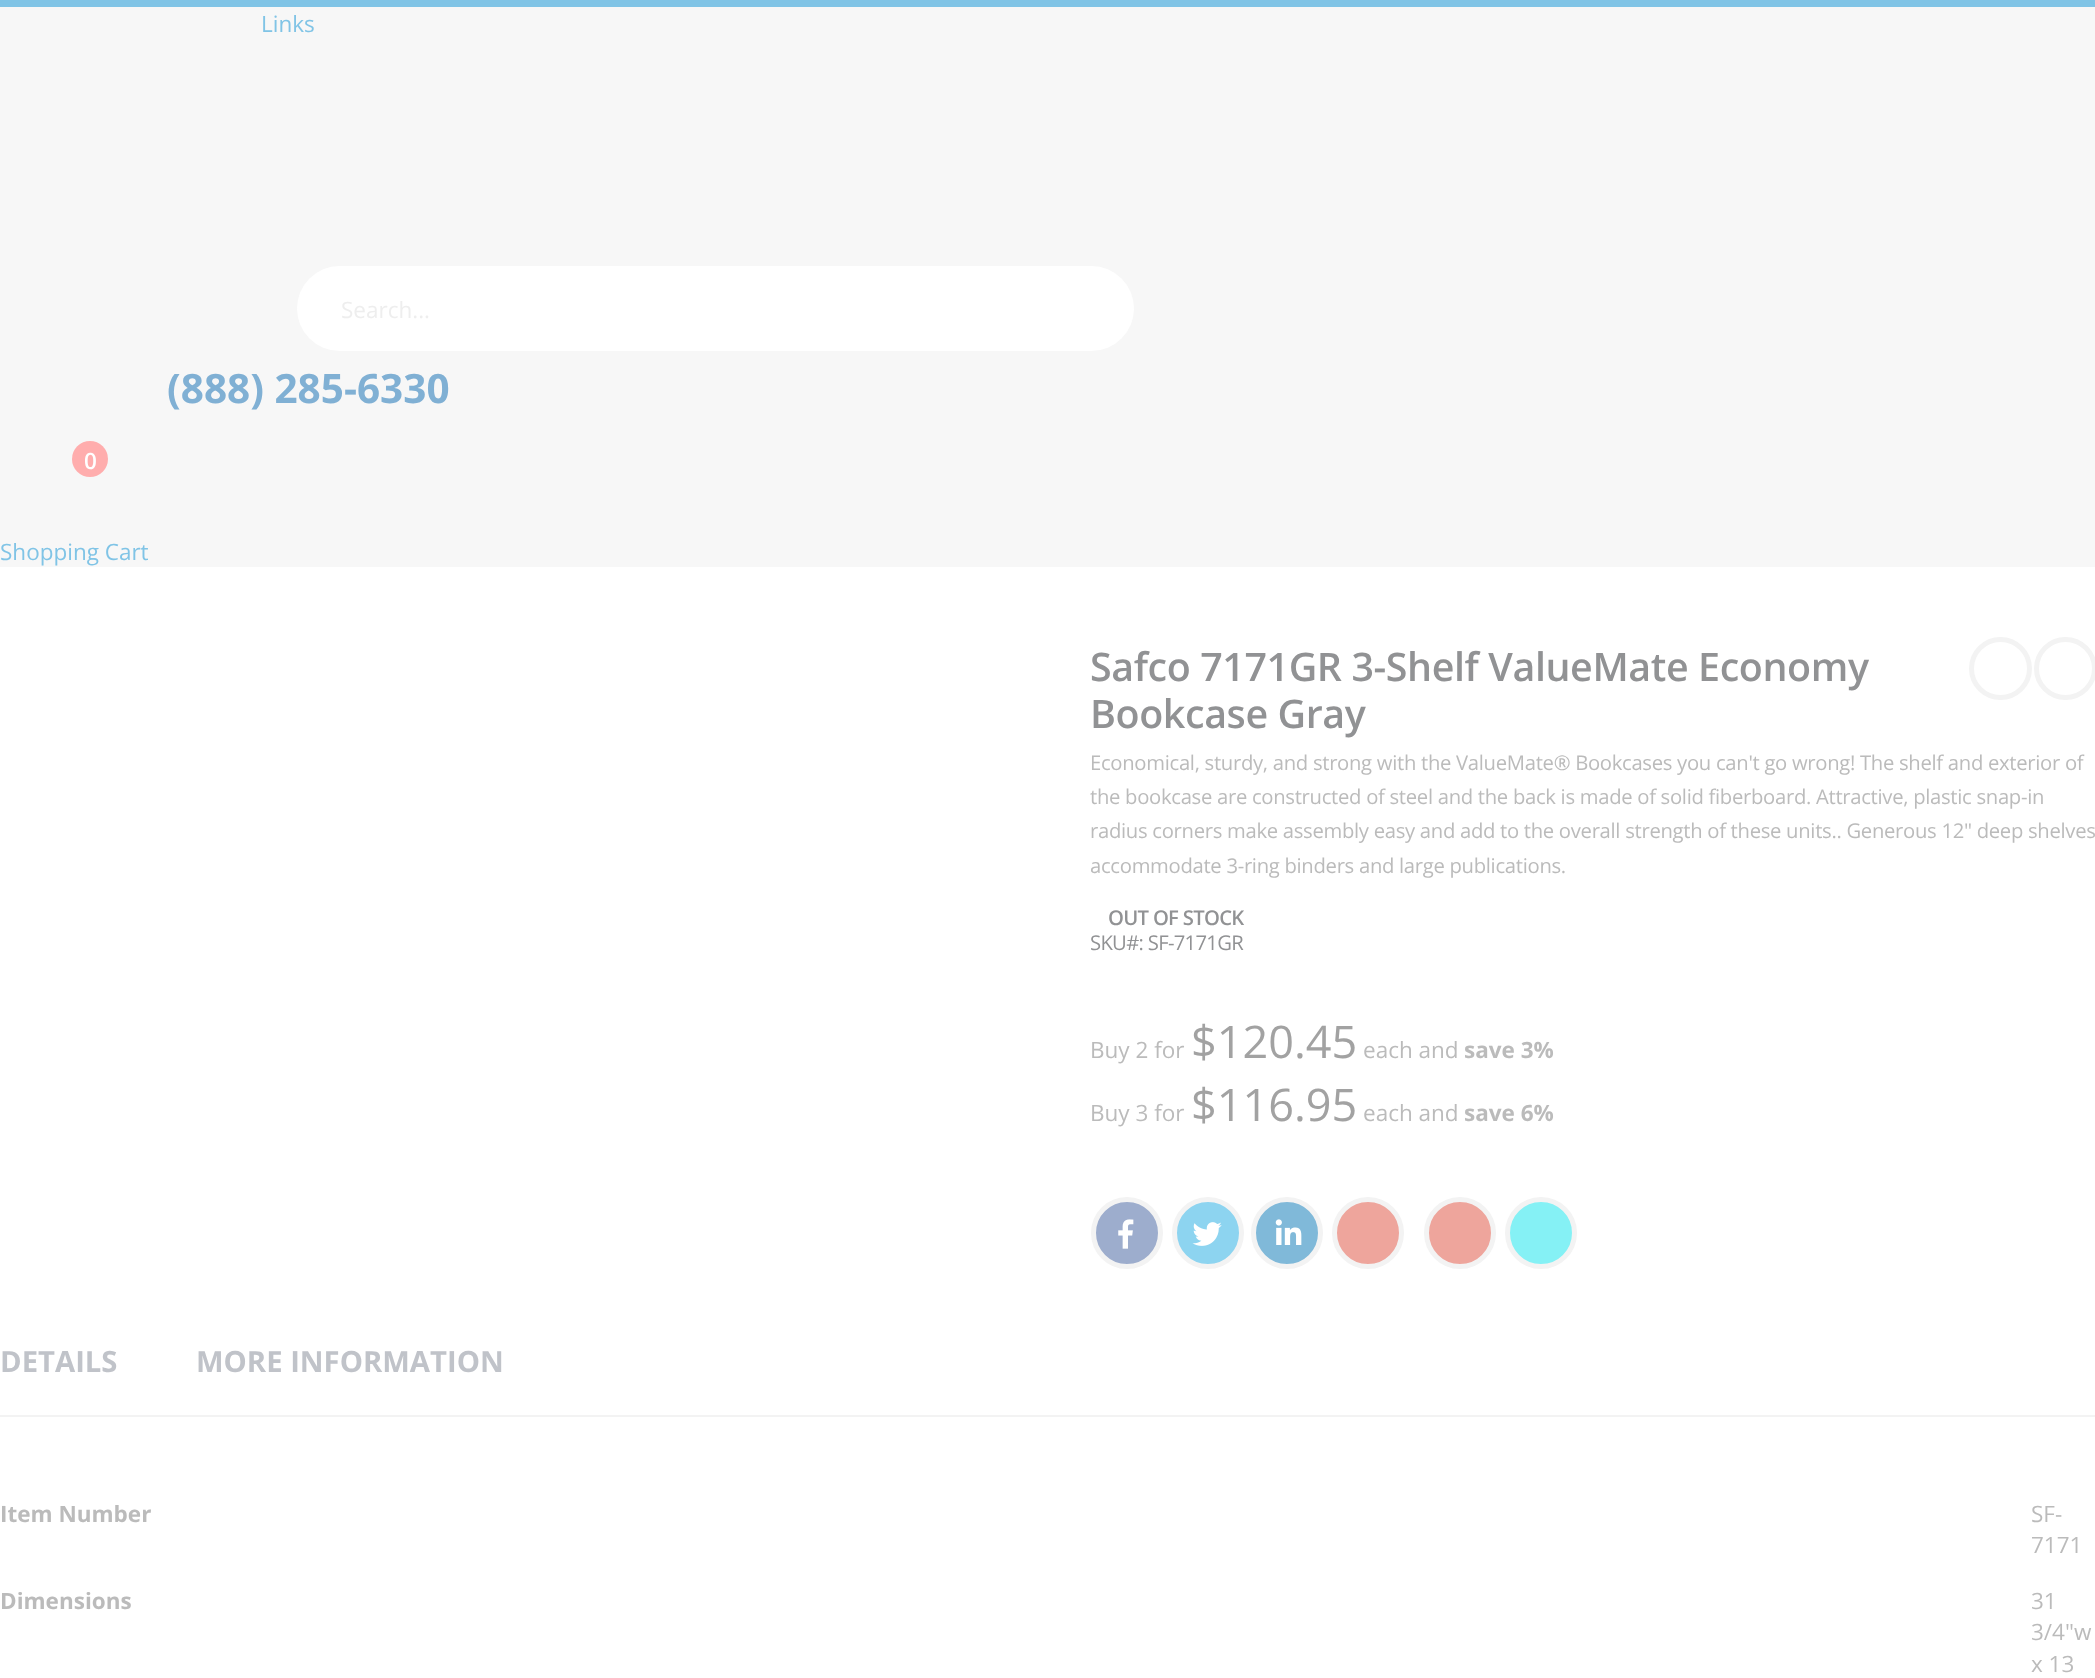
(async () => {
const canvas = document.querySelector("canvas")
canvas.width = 2095
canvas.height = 1678
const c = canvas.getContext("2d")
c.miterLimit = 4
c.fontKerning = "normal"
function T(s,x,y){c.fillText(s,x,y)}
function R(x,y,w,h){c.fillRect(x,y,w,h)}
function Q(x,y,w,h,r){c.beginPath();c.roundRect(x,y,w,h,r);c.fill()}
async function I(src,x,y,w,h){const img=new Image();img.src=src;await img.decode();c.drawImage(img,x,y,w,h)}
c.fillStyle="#fff"
R(0,0,2095,1678)
c.fillStyle="#f7f7f7"
R(0,7,2095,560)
c.fillStyle="#80c4e6"
R(0,0,2095,7)
c.font="22.5px Open Sans"
T("Links",261,32)
c.fillStyle="#fff"
Q(297,266,837,85,42.5)
c.fillStyle="#eee"
T("Search...",341,318)
c.font="bold 40.5px Open Sans"
c.fillStyle="#80b0d4"
T("(888) 285-6330",167,403)
c.fillStyle="#ffadad"
c.beginPath()
c.arc(90,459,18,0,7)
c.fill()
c.font="600 22.5px Open Sans"
c.fillStyle="#fff"
T("0",84,469)
c.font="22.5px Open Sans"
c.fillStyle="#80c4e6"
T("Shopping Cart",0,560)
c.letterSpacing="-0.4px"
c.font="600 39.4px Open Sans"
c.fillStyle="#919294"
T("Safco 7171GR 3-Shelf ValueMate Economy",1090,681)
T("Bookcase Gray",1090,728)
c.beginPath()
c.arc(2000.5,668.5,29,0,7)
c.strokeStyle="#f3f3f3"
c.lineWidth=5
c.stroke()
c.beginPath()
c.arc(2065.5,668.5,29,0,7)
c.stroke()
c.letterSpacing="-0.3px"
c.font="20.25px Open Sans"
c.fillStyle="#bbb"
T("Economical, sturdy, and strong with the ValueMate® Bookcases you can't go wrong! The shelf and exterior of",1090,770)
T("the bookcase are constructed of steel and the back is made of solid fiberboard. Attractive, plastic snap-in",1090,804)
T("radius corners make assembly easy and add to the overall strength of these units.. Generous 12\" deep shelves",1090,838)
T("accommodate 3-ring binders and large publications.",1090,873)
c.letterSpacing="-0.7px"
c.font="600 20.25px Open Sans"
c.fillStyle="#919294"
T("OUT OF STOCK",1108,925)
c.font="20.25px Open Sans"
T("SKU#: SF-7171GR",1090,950)
c.letterSpacing="0px"
c.font="22.5px Open Sans"
c.fillStyle="#bbb"
T("Buy 2 for",1090,1058)
c.font="45px Open Sans"
c.fillStyle="#a2a2a2"
T("$120.45",1191,1058)
c.font="22.5px Open Sans"
c.fillStyle="#bbb"
T("each and",1363,1058)
c.font="bold 22.5px Open Sans"
T("save 3%",1464,1058)
c.font="22.5px Open Sans"
T("Buy 3 for",1090,1121)
c.font="45px Open Sans"
c.fillStyle="#a2a2a2"
T("$116.95",1191,1121)
c.font="22.5px Open Sans"
c.fillStyle="#bbb"
T("each and",1363,1121)
c.font="bold 22.5px Open Sans"
T("save 6%",1464,1121)
c.fillStyle="#9dadcd"
c.beginPath()
c.arc(1127,1233,33.5,0,7)
c.fill()
c.stroke()
await I("1.png",1118,1219,16,30)
c.fillStyle="#8dd4f0"
c.beginPath()
c.arc(1208,1233,33.5,0,7)
c.fill()
c.stroke()
await I("2.png",1192,1222,30,24)
c.fillStyle="#80b9d9"
c.beginPath()
c.arc(1287,1233,33.5,0,7)
c.fill()
c.stroke()
await I("3.png",1275,1219,27,26)
c.fillStyle="#eea59c"
c.beginPath()
c.arc(1368,1233,33.5,0,7)
c.fill()
c.stroke()
c.beginPath()
c.arc(1460,1233,33.5,0,7)
c.fill()
c.stroke()
c.fillStyle="#85f1f5"
c.beginPath()
c.arc(1541,1233,33.5,0,7)
c.fill()
c.stroke()
c.font="bold 29.25px Open Sans"
c.fillStyle="#c0c3c9"
T("DETAILS",0,1372)
T("MORE INFORMATION",196,1372)
c.fillStyle="#f3f3f3"
R(0,1415,2095,2)
c.font="bold 22.5px Open Sans"
c.fillStyle="#bbb"
T("Item Number",0,1522)
c.font="22.5px Open Sans"
T("SF-",2031,1522)
T("7171",2031,1553)
c.font="bold 22.5px Open Sans"
T("Dimensions",0,1609)
c.font="22.5px Open Sans"
T("31",2031,1609)
T("3/4\"w",2031,1640)
T("x 13",2031,1672)
})()
